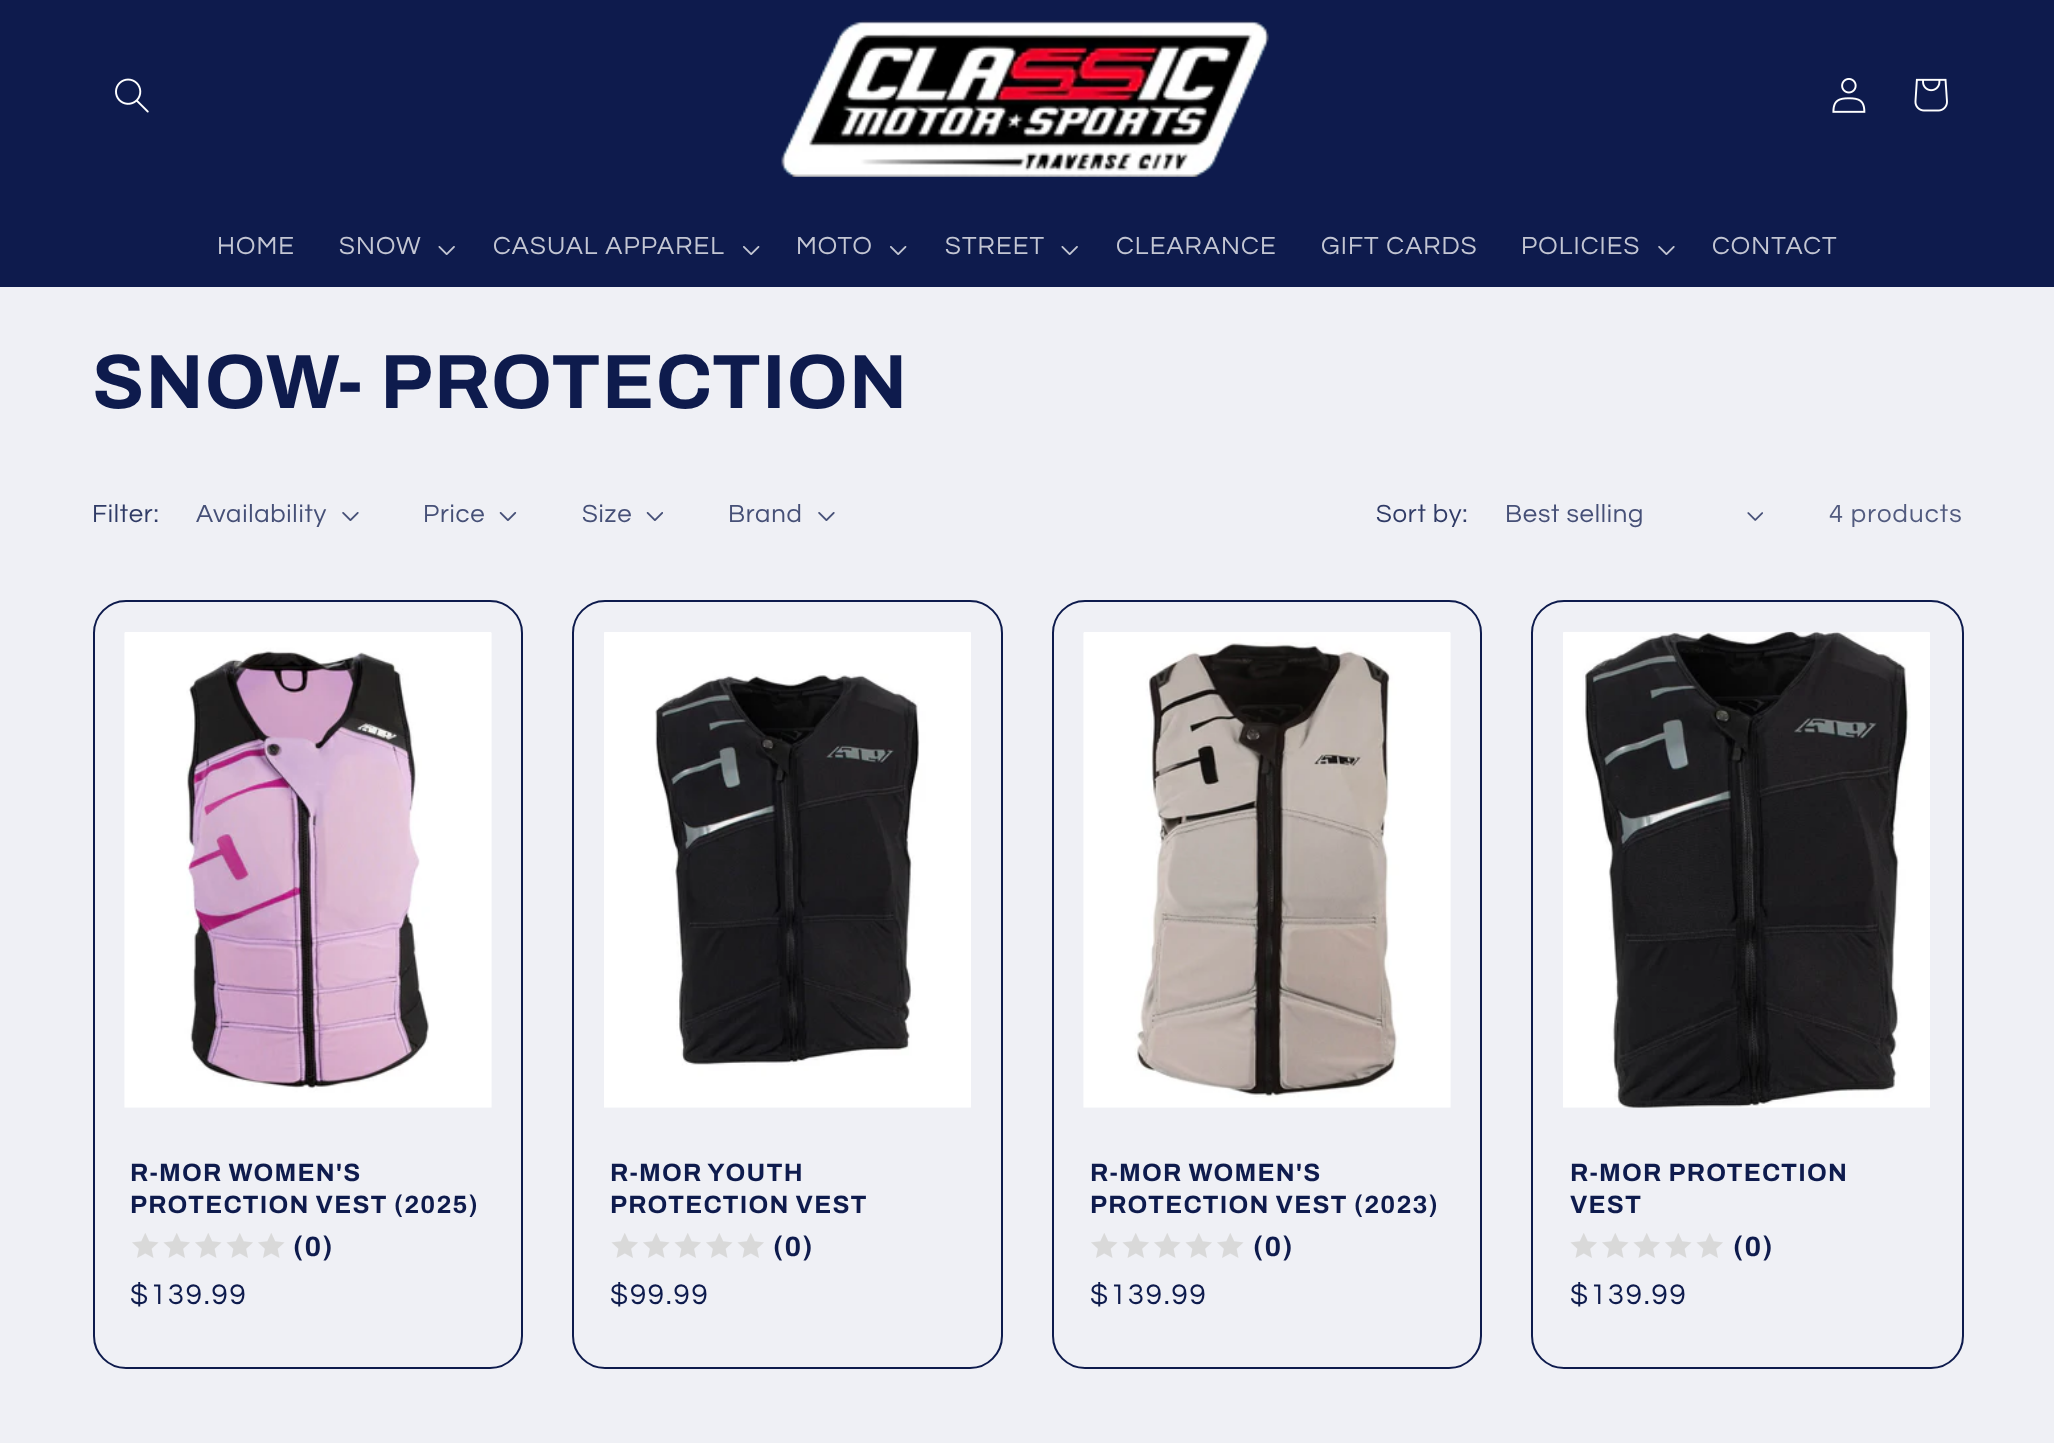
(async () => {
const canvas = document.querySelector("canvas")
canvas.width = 2054
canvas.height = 1443
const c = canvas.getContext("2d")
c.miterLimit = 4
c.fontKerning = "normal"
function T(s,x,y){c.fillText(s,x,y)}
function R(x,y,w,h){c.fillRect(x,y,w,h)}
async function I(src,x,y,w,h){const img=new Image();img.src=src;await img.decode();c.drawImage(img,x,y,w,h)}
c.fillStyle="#eff0f5"
R(0,0,2054,1443)
c.fillStyle="#0e1b4d"
R(0,0,2054,287)
await I("1.png",115,78,34,35)
await I("2.png",781,20,488,157)
await I("3.png",1832,78,34,35)
await I("4.png",1914,78,34,34)
c.letterSpacing="1.1px"
c.font="25.75px Questrial"
c.fillStyle="#c3c6d3"
T("HOME",217,254)
T("SNOW",339,254)
await I("5.png",438,246,17,9)
T("CASUAL APPAREL",493,254)
await I("6.png",743,246,17,9)
T("MOTO",796,254)
await I("6.png",890,246,17,9)
T("STREET",945,254)
await I("5.png",1061,246,17,9)
T("CLEARANCE",1116,254)
T("GIFT CARDS",1321,254)
T("POLICIES",1521,254)
await I("7.png",1658,246,17,9)
T("CONTACT",1712,254)
c.letterSpacing="1.2px"
c.font="bold 77px Archivo"
c.fillStyle="#0e1b4d"
T("SNOW- PROTECTION",92,408)
c.letterSpacing="0.75px"
c.font="25.75px Questrial"
c.fillStyle="#303b66"
T("Filter:",92,522)
c.fillStyle="#465077"
T("Availability",196,522)
await I("8.png",342,512,17,9)
T("Price",423,522)
await I("9.png",499,512,18,9)
T("Size",582,522)
await I("10.png",646,512,17,9)
T("Brand",728,522)
await I("8.png",818,512,17,9)
c.fillStyle="#303b66"
T("Sort by:",1376,522)
c.fillStyle="#465077"
T("Best selling",1505,522)
await I("11.png",1747,512,16,9)
c.letterSpacing="1.1px"
c.fillStyle="#525b7f"
T("4 products",1829,522)
c.beginPath()
c.roundRect(94,601,428,767,32)
c.strokeStyle="#0e1b4d"
c.lineWidth=2
c.stroke()
await I("12.png",124,632,368,476)
c.letterSpacing="1.2px"
c.font="bold 25px Archivo"
c.fillStyle="#0e1b4d"
T("R-MOR WOMEN'S",130,1181)
T("PROTECTION VEST (2025)",130,1213)
await I("13.png",132,1233,27,25)
await I("14.png",163,1233,27,25)
await I("13.png",195,1233,27,25)
await I("14.png",226,1233,27,25)
await I("13.png",258,1233,27,25)
c.font="bold 28px Archivo"
T("(0)",293,1256)
c.letterSpacing="1.75px"
c.font="29.5px Questrial"
T("$139.99",130,1304)
c.beginPath()
c.roundRect(573,601,429,767,32)
c.stroke()
await I("15.png",604,632,367,476)
c.letterSpacing="1.2px"
c.font="bold 25px Archivo"
T("R-MOR YOUTH",610,1181)
T("PROTECTION VEST",610,1213)
await I("14.png",611,1233,27,25)
await I("13.png",643,1233,27,25)
await I("14.png",674,1233,27,25)
await I("13.png",706,1233,27,25)
await I("14.png",737,1233,27,25)
c.font="bold 28px Archivo"
T("(0)",773,1256)
c.letterSpacing="1.75px"
c.font="29.5px Questrial"
T("$99.99",610,1304)
c.beginPath()
c.roundRect(1053,601,428,767,32)
c.stroke()
await I("16.png",1083,632,368,476)
c.letterSpacing="1.2px"
c.font="bold 25px Archivo"
T("R-MOR WOMEN'S",1090,1181)
T("PROTECTION VEST (2023)",1090,1213)
await I("13.png",1091,1233,27,25)
await I("14.png",1122,1233,27,25)
await I("13.png",1154,1233,27,25)
await I("14.png",1185,1233,27,25)
await I("13.png",1217,1233,27,25)
c.font="bold 28px Archivo"
T("(0)",1253,1256)
c.letterSpacing="1.75px"
c.font="29.5px Questrial"
T("$139.99",1090,1304)
c.beginPath()
c.roundRect(1532,601,431,767,32)
c.stroke()
await I("17.png",1563,631,367,477)
c.letterSpacing="1.2px"
c.font="bold 25px Archivo"
T("R-MOR PROTECTION",1570,1181)
T("VEST",1570,1213)
await I("14.png",1570,1233,27,25)
await I("13.png",1602,1233,27,25)
await I("14.png",1633,1233,27,25)
await I("13.png",1665,1233,27,25)
await I("14.png",1696,1233,27,25)
c.font="bold 28px Archivo"
T("(0)",1733,1256)
c.letterSpacing="1.75px"
c.font="29.5px Questrial"
T("$139.99",1570,1304)
})()
